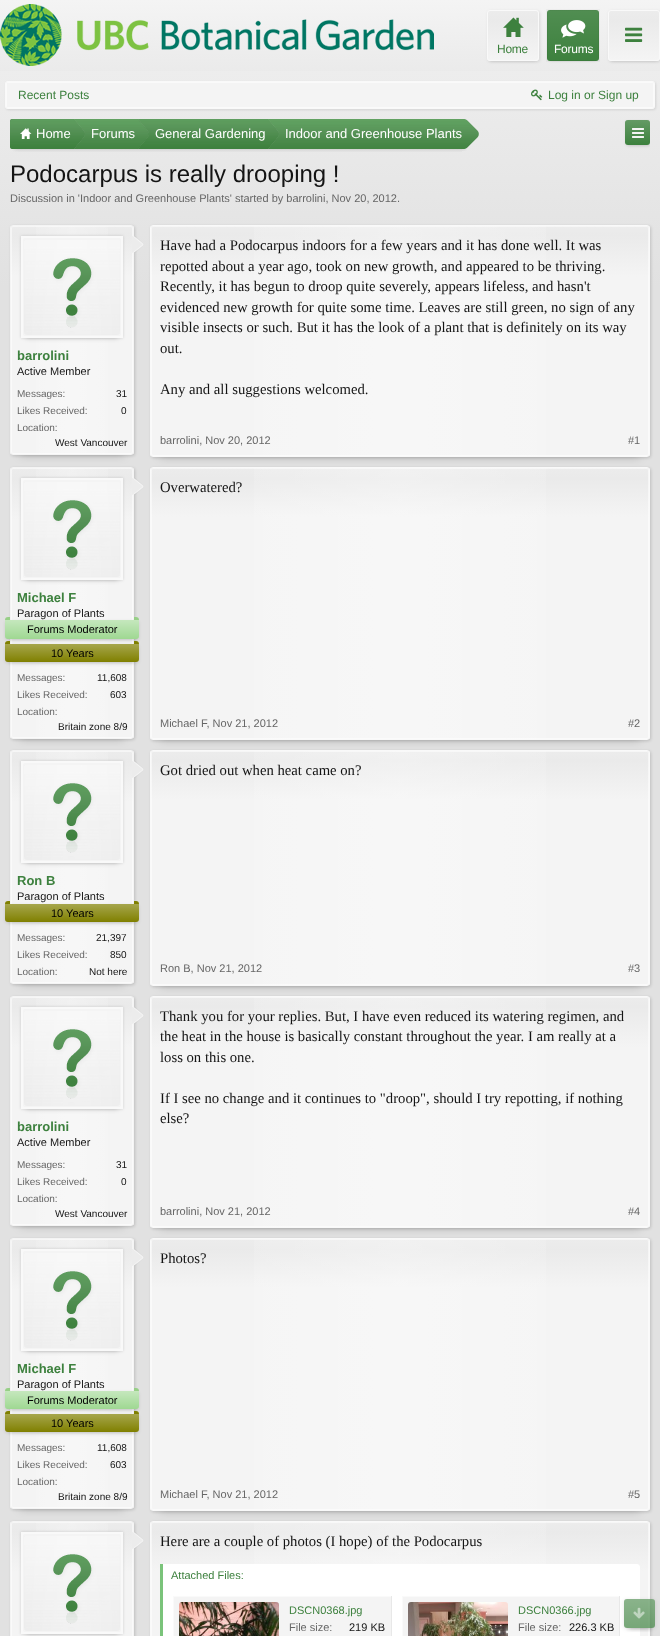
(async () => {
const canvas = document.querySelector("canvas")
canvas.width = 660
canvas.height = 1636
const c = canvas.getContext("2d")
c.miterLimit = 4
c.fontKerning = "normal"
function T(s,x,y){c.fillText(s,x,y)}
function R(x,y,w,h){c.fillRect(x,y,w,h)}
function Q(x,y,w,h,r){c.beginPath();c.roundRect(x,y,w,h,r);c.fill()}
async function I(src,x,y,w,h){const img=new Image();img.src=src;await img.decode();c.drawImage(img,x,y,w,h)}
let gradient, path
c.fillStyle="#fff"
R(0,0,660,1636)
gradient = c.createLinearGradient(330,0,330,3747)
gradient.addColorStop(0,"#f4f4f4")
gradient.addColorStop(.05,"#dbdbdb")
c.fillStyle = gradient
R(0,0,660,71)
await I("1.png",0,4,434,62)
c.fillStyle="#0000001a"
c.filter="blur(1.5px)"
c.beginPath()
c.rect(490,16,46,45)
c.fill()
c.filter="none"
c.filter="blur(1.5px)"
c.beginPath()
c.roundRect(488,11,52,51,3)
c.fill()
c.filter="none"
gradient = c.createLinearGradient(513,10,513,61)
gradient.addColorStop(0,"#ececec")
gradient.addColorStop(.2,"#eaeaea")
gradient.addColorStop(.98,"#f4f4f4")
c.fillStyle = gradient
Q(487,10,52,51,3)
c.beginPath()
c.roundRect(487.5,10.5,51,50,2.5)
c.strokeStyle="#ffffff4d"
c.stroke()
c.beginPath()
c.roundRect(487.5,10.5,51,50,2.5)
c.strokeStyle="#f9f9f9"
c.stroke()
await I("2.png",503,17,21,20)
c.letterSpacing="-0.25px"
c.font="12px Liberation Sans"
c.fillStyle="#3d813e"
T("Home",497,53)
c.fillStyle="#0000001a"
c.filter="blur(1.5px)"
c.beginPath()
c.rect(550,16,46,45)
c.fill()
c.filter="none"
c.strokeStyle="#00000008"
c.strokeRect(546.5,9.5,53,52)
c.fillStyle="#3d813e"
Q(547,10,52,51,3)
gradient = c.createLinearGradient(573,10,573,61)
gradient.addColorStop(0,"#ffffff1a")
gradient.addColorStop(1,"#ffffff00")
c.fillStyle = gradient
Q(547,10,52,51,3)
c.strokeRect(547.5,10.5,51,50)
await I("3.png",561,20,25,18)
c.fillStyle="#fff"
T("Forums",554,53)
c.fillStyle="#0000001a"
c.filter="blur(1.5px)"
c.beginPath()
c.rect(611,16,46,45)
c.fill()
c.filter="none"
c.filter="blur(1.5px)"
c.beginPath()
c.roundRect(609,11,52,51,3)
c.fill()
c.filter="none"
gradient = c.createLinearGradient(634,10,634,61)
gradient.addColorStop(0,"#ececec")
gradient.addColorStop(.2,"#eaeaea")
gradient.addColorStop(.98,"#f4f4f4")
c.fillStyle = gradient
Q(608,10,52,51,3)
c.beginPath()
c.roundRect(608.5,10.5,51,50,2.5)
c.strokeStyle="#ffffff4d"
c.stroke()
c.beginPath()
c.roundRect(608.5,10.5,51,50,2.5)
c.strokeStyle="#f9f9f9"
c.stroke()
await I("4.png",625,27,18,15)
gradient = c.createLinearGradient(330,71,330,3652)
gradient.addColorStop(0,"#ededed")
gradient.addColorStop(.06,"#e1e1e1")
c.fillStyle = gradient
R(0,71,660,1565)
c.fillStyle="#0000001a"
c.filter="blur(1px)"
c.beginPath()
c.roundRect(6,82,650,28,3)
c.fill()
c.filter="none"
c.fillStyle="#f4f4f4"
Q(5,81,650,28,3)
c.beginPath()
c.roundRect(6.5,82.5,647,25,1.5)
c.strokeStyle="#fafafa"
c.stroke()
c.beginPath()
c.roundRect(5.5,81.5,649,27,2.5)
c.strokeStyle="#f9f9f9"
c.stroke()
c.letterSpacing="0px"
c.fillStyle="#3d813e"
T("Recent Posts",18,99)
await I("5.png",531,89,12,12)
T("Log in or Sign up",548,99)
await I("6.png",30,119,41,33)
await I("7.png",10,119,20,33)
await I("8.png",20,128,12,11)
c.font="13px Liberation Sans"
c.fillStyle="#fff"
T("Home",36,138)
await I("9.png",71,119,14,30)
await I("10.png",91,119,44,33)
await I("11.png",71,119,20,33)
T("Forums",91,138)
await I("12.png",135,119,14,30)
await I("13.png",155,119,110,33)
await I("14.png",135,119,20,33)
T("General Gardening",155,138)
await I("9.png",265,119,14,30)
await I("15.png",285,119,177,33)
await I("11.png",265,119,20,33)
T("Indoor and Greenhouse Plants",285,138)
await I("16.png",462,119,17,32)
c.fillStyle="#0000001a"
c.filter="blur(1.5px)"
c.beginPath()
c.rect(628,126,19,19)
c.fill()
c.filter="none"
c.save()
c.beginPath()
c.rect(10,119,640,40)
c.clip()
c.filter="blur(1.5px)"
c.beginPath()
c.roundRect(626,121,25,25,3)
c.fill()
c.filter="none"
c.restore()
c.fillStyle="#3d813e"
Q(625,120,25,25,3)
gradient = c.createLinearGradient(638,120,638,145)
gradient.addColorStop(0,"#ffffff33")
gradient.addColorStop(1,"#ffffff00")
c.fillStyle = gradient
Q(625,120,25,25,3)
await I("17.png",632,128,12,10)
c.font="24px Liberation Sans"
c.fillStyle="#141414"
T("Podocarpus is really drooping !",10,182)
c.font="11px Liberation Sans"
c.fillStyle="#666"
T("Discussion in 'Indoor and Greenhouse Plants' started by barrolini, Nov 20, 2012.",10,202)
c.fillStyle="#00000033"
c.filter="blur(5px)"
c.beginPath()
c.rect(20,245,104,210)
c.fill()
c.filter="none"
c.fillStyle="#00000026"
c.filter="blur(1.5px)"
c.beginPath()
c.roundRect(11,226,124,230,3)
c.fill()
c.filter="none"
c.save()
c.beginPath()
c.roundRect(10,225,124,230,3)
c.clip()
gradient = c.createLinearGradient(72,226,72,454)
gradient.addColorStop(0,"#ececec")
gradient.addColorStop(.04,"#eaeaea")
gradient.addColorStop(.22,"#f4f4f4")
c.fillStyle = gradient
R(10,226,124,228)
c.restore()
gradient = c.createLinearGradient(11,340,133,340)
gradient.addColorStop(0,"#ffffff00")
gradient.addColorStop(.5,"#ffffff4d")
gradient.addColorStop(1,"#ffffff00")
c.fillStyle = gradient
R(36,226,72,228)
c.beginPath()
c.roundRect(11.5,226.5,121,227,1.5)
c.strokeStyle="#ffffff80"
c.stroke()
c.beginPath()
c.roundRect(10.5,225.5,123,229,2.5)
c.strokeStyle="#f4f4f4"
c.stroke()
c.fillStyle="#00000033"
c.filter="blur(2.5px)"
c.beginPath()
c.rect(26,246,92,92)
c.fill()
c.filter="none"
c.fillStyle="#00000026"
c.filter="blur(1.5px)"
c.beginPath()
c.rect(21,236,102,102)
c.fill()
c.filter="none"
c.fillStyle="#f9f9f9"
R(21,236,102,102)
c.fillStyle="#f4f4f4"
Q(23,238,98,98,2)
await I("18.png",24,240,96,95)
await I("19.png",132,236,12,17)
c.font="bold 13px Liberation Sans"
c.fillStyle="#3d813e"
T("barrolini",17,360)
c.font="11px Liberation Sans"
c.fillStyle="#141414"
T("Active Member",17,375)
c.font="10px Liberation Sans"
c.fillStyle="#666"
T("Messages:",17,397)
c.fillStyle="#141414"
T("31",116,397)
c.fillStyle="#666"
T("Likes Received:",17,414)
c.fillStyle="#141414"
T("0",121,414)
c.fillStyle="#666"
T("Location:",17,431)
c.fillStyle="#141414"
T("West Vancouver",55,446)
c.fillStyle="#00000033"
c.filter="blur(5px)"
c.beginPath()
c.rect(160,245,480,212)
c.fill()
c.filter="none"
c.fillStyle="#00000026"
c.filter="blur(1.5px)"
c.beginPath()
c.roundRect(151,226,500,232,3)
c.fill()
c.filter="none"
c.save()
c.beginPath()
c.roundRect(150,225,500,232,3)
c.clip()
gradient = c.createLinearGradient(400,226,400,456)
gradient.addColorStop(0,"#ececec")
gradient.addColorStop(.04,"#eaeaea")
gradient.addColorStop(.22,"#f4f4f4")
c.fillStyle = gradient
R(150,226,500,230)
c.restore()
gradient = c.createLinearGradient(151,341,649,341)
gradient.addColorStop(0,"#ffffff00")
gradient.addColorStop(.5,"#ffffff4d")
gradient.addColorStop(1,"#ffffff00")
c.fillStyle = gradient
R(254,226,292,230)
c.beginPath()
c.roundRect(151.5,226.5,497,229,1.5)
c.strokeStyle="#ffffff80"
c.stroke()
c.beginPath()
c.roundRect(150.5,225.5,499,231,2.5)
c.strokeStyle="#f9f9f9"
c.stroke()
c.font="14.7px Liberation Serif"
c.fillStyle="#141414"
T("Have had a Podocarpus indoors for a few years and it has done well. It was",160,250)
T("repotted about a year ago, took on new growth, and appeared to be thriving.",160,271)
T("Recently, it has begun to droop quite severely, appears lifeless, and hasn't",160,291)
T("evidenced new growth for quite some time. Leaves are still green, no sign of any",160,312)
T("visible insects or such. But it has the look of a plant that is definitely on its way",160,332)
T("out.",160,353)
T("Any and all suggestions welcomed.",160,394)
c.font="11px Liberation Sans"
c.fillStyle="#666"
T("barrolini, Nov 20, 2012",160,444)
T("#1",628,444)
c.fillStyle="#00000033"
c.filter="blur(5px)"
c.beginPath()
c.rect(20,487,104,252)
c.fill()
c.filter="none"
c.fillStyle="#00000026"
c.filter="blur(1.5px)"
c.beginPath()
c.roundRect(11,468,124,272,3)
c.fill()
c.filter="none"
c.save()
c.beginPath()
c.roundRect(10,467,124,272,3)
c.clip()
gradient = c.createLinearGradient(72,468,72,738)
gradient.addColorStop(0,"#ececec")
gradient.addColorStop(.04,"#eaeaea")
gradient.addColorStop(.19,"#f4f4f4")
c.fillStyle = gradient
R(10,468,124,270)
c.restore()
gradient = c.createLinearGradient(11,603,133,603)
gradient.addColorStop(0,"#ffffff00")
gradient.addColorStop(.5,"#ffffff4d")
gradient.addColorStop(1,"#ffffff00")
c.fillStyle = gradient
R(36,468,72,270)
c.beginPath()
c.roundRect(11.5,468.5,121,269,1.5)
c.strokeStyle="#ffffff80"
c.stroke()
c.beginPath()
c.roundRect(10.5,467.5,123,271,2.5)
c.strokeStyle="#f4f4f4"
c.stroke()
c.fillStyle="#00000033"
c.filter="blur(2.5px)"
c.beginPath()
c.rect(26,488,92,92)
c.fill()
c.filter="none"
c.fillStyle="#00000026"
c.filter="blur(1.5px)"
c.beginPath()
c.rect(21,478,102,102)
c.fill()
c.filter="none"
c.fillStyle="#f9f9f9"
R(21,478,102,102)
c.fillStyle="#f4f4f4"
Q(23,480,98,98,2)
await I("18.png",24,482,96,95)
await I("20.png",132,478,12,17)
c.font="bold 13px Liberation Sans"
c.fillStyle="#3d813e"
T("Michael F",17,602)
c.font="11px Liberation Sans"
c.fillStyle="#141414"
T("Paragon of Plants",17,617)
c.fillStyle="#00000033"
c.filter="blur(2.5px)"
c.beginPath()
c.rect(10,630,124,9)
c.fill()
c.filter="none"
c.fillStyle="#0000001a"
c.filter="blur(1.5px)"
c.beginPath()
c.roundRect(5,621,134,19,3)
c.fill()
c.filter="none"
c.fillStyle="#9fd892"
c.beginPath()
c.roundRect(5,620,134,19,[0,0,3,3])
c.fill()
gradient = c.createLinearGradient(72,620,72,639)
gradient.addColorStop(0,"#ffffff66")
gradient.addColorStop(1,"#ffffff00")
c.fillStyle = gradient
R(5,620,134,18)
c.fillStyle="#97cf87"
c.beginPath()
c.roundRect(5,617,5,3,[3,0,0,0])
c.fill()
c.beginPath()
c.roundRect(134,617,5,3,[0,3,0,0])
c.fill()
c.fillStyle="#000"
T("Forums Moderator",27,633)
c.fillStyle="#00000033"
c.filter="blur(2.5px)"
c.beginPath()
c.rect(10,654,124,8)
c.fill()
c.filter="none"
c.fillStyle="#0000001a"
c.filter="blur(1.5px)"
c.beginPath()
c.roundRect(5,645,134,18,3)
c.fill()
c.filter="none"
c.fillStyle="#808000"
c.beginPath()
c.roundRect(5,644,134,18,[0,0,3,3])
c.fill()
gradient = c.createLinearGradient(72,644,72,662)
gradient.addColorStop(0,"#ffffff4d")
gradient.addColorStop(1,"#ffffff00")
c.fillStyle = gradient
R(5,644,134,17)
c.fillStyle="#808000"
c.beginPath()
c.roundRect(5,641,5,3,[3,0,0,0])
c.fill()
c.beginPath()
c.roundRect(134,641,5,3,[0,3,0,0])
c.fill()
c.fillStyle="#000"
T("10 Years",51,657)
c.font="10px Liberation Sans"
c.fillStyle="#666"
T("Messages:",17,681)
c.fillStyle="#141414"
T("11,608",97,681)
c.fillStyle="#666"
T("Likes Received:",17,698)
c.fillStyle="#141414"
T("603",110,698)
c.fillStyle="#666"
T("Location:",17,715)
c.fillStyle="#141414"
T("Britain zone 8/9",58,730)
c.fillStyle="#00000033"
c.filter="blur(5px)"
c.beginPath()
c.rect(160,487,480,253)
c.fill()
c.filter="none"
c.fillStyle="#00000026"
c.filter="blur(1.5px)"
c.beginPath()
c.roundRect(151,468,500,273,3)
c.fill()
c.filter="none"
c.save()
c.beginPath()
c.roundRect(150,467,500,273,3)
c.clip()
gradient = c.createLinearGradient(400,468,400,739)
gradient.addColorStop(0,"#ececec")
gradient.addColorStop(.04,"#eaeaea")
gradient.addColorStop(.18,"#f4f4f4")
c.fillStyle = gradient
R(150,468,500,271)
c.restore()
gradient = c.createLinearGradient(151,604,649,604)
gradient.addColorStop(0,"#ffffff00")
gradient.addColorStop(.5,"#ffffff4d")
gradient.addColorStop(1,"#ffffff00")
c.fillStyle = gradient
R(254,468,292,271)
c.beginPath()
c.roundRect(151.5,468.5,497,270,1.5)
c.strokeStyle="#ffffff80"
c.stroke()
c.beginPath()
c.roundRect(150.5,467.5,499,272,2.5)
c.strokeStyle="#f9f9f9"
c.stroke()
c.font="14.7px Liberation Serif"
c.fillStyle="#141414"
T("Overwatered?",160,492)
c.font="11px Liberation Sans"
c.fillStyle="#666"
T("Michael F, Nov 21, 2012",160,727)
T("#2",628,727)
c.fillStyle="#00000033"
c.filter="blur(5px)"
c.beginPath()
c.rect(20,770,104,214)
c.fill()
c.filter="none"
c.fillStyle="#00000026"
c.filter="blur(1.5px)"
c.beginPath()
c.roundRect(11,751,124,234,3)
c.fill()
c.filter="none"
c.save()
c.beginPath()
c.roundRect(10,750,124,234,3)
c.clip()
gradient = c.createLinearGradient(72,751,72,983)
gradient.addColorStop(0,"#ececec")
gradient.addColorStop(.04,"#eaeaea")
gradient.addColorStop(.22,"#f4f4f4")
c.fillStyle = gradient
R(10,751,124,232)
c.restore()
gradient = c.createLinearGradient(11,867,133,867)
gradient.addColorStop(0,"#ffffff00")
gradient.addColorStop(.5,"#ffffff4d")
gradient.addColorStop(1,"#ffffff00")
c.fillStyle = gradient
R(36,751,72,232)
c.beginPath()
c.roundRect(11.5,751.5,121,231,1.5)
c.strokeStyle="#ffffff80"
c.stroke()
c.beginPath()
c.roundRect(10.5,750.5,123,233,2.5)
c.strokeStyle="#f4f4f4"
c.stroke()
c.fillStyle="#00000033"
c.filter="blur(2.5px)"
c.beginPath()
c.rect(26,771,92,92)
c.fill()
c.filter="none"
c.fillStyle="#00000026"
c.filter="blur(1.5px)"
c.beginPath()
c.rect(21,761,102,102)
c.fill()
c.filter="none"
c.fillStyle="#f9f9f9"
R(21,761,102,102)
c.fillStyle="#f4f4f4"
Q(23,763,98,98,2)
await I("18.png",24,765,96,95)
await I("20.png",132,761,12,17)
c.font="bold 13px Liberation Sans"
c.fillStyle="#3d813e"
T("Ron B",17,885)
c.font="11px Liberation Sans"
c.fillStyle="#141414"
T("Paragon of Plants",17,900)
c.fillStyle="#00000033"
c.filter="blur(2.5px)"
c.beginPath()
c.rect(10,914,124,8)
c.fill()
c.filter="none"
c.fillStyle="#0000001a"
c.filter="blur(1.5px)"
c.beginPath()
c.roundRect(5,905,134,18,3)
c.fill()
c.filter="none"
c.fillStyle="#808000"
c.beginPath()
c.roundRect(5,904,134,18,[0,0,3,3])
c.fill()
gradient = c.createLinearGradient(72,904,72,922)
gradient.addColorStop(0,"#ffffff4d")
gradient.addColorStop(1,"#ffffff00")
c.fillStyle = gradient
R(5,904,134,17)
c.fillStyle="#808000"
c.beginPath()
c.roundRect(5,901,5,3,[3,0,0,0])
c.fill()
c.beginPath()
c.roundRect(134,901,5,3,[0,3,0,0])
c.fill()
c.fillStyle="#000"
T("10 Years",51,917)
c.font="10px Liberation Sans"
c.fillStyle="#666"
T("Messages:",17,941)
c.fillStyle="#141414"
T("21,397",96,941)
c.fillStyle="#666"
T("Likes Received:",17,958)
c.fillStyle="#141414"
T("850",110,958)
c.fillStyle="#666"
T("Location:",17,975)
c.fillStyle="#141414"
T("Not here",89,975)
c.fillStyle="#00000033"
c.filter="blur(5px)"
c.beginPath()
c.rect(160,770,480,216)
c.fill()
c.filter="none"
c.fillStyle="#00000026"
c.filter="blur(1.5px)"
c.beginPath()
c.roundRect(151,751,500,236,3)
c.fill()
c.filter="none"
c.save()
c.beginPath()
c.roundRect(150,750,500,236,3)
c.clip()
gradient = c.createLinearGradient(400,751,400,985)
gradient.addColorStop(0,"#ececec")
gradient.addColorStop(.04,"#eaeaea")
gradient.addColorStop(.21,"#f4f4f4")
c.fillStyle = gradient
R(150,751,500,234)
c.restore()
gradient = c.createLinearGradient(151,868,649,868)
gradient.addColorStop(0,"#ffffff00")
gradient.addColorStop(.5,"#ffffff4d")
gradient.addColorStop(1,"#ffffff00")
c.fillStyle = gradient
R(254,751,292,234)
c.beginPath()
c.roundRect(151.5,751.5,497,233,1.5)
c.strokeStyle="#ffffff80"
c.stroke()
c.beginPath()
c.roundRect(150.5,750.5,499,235,2.5)
c.strokeStyle="#f9f9f9"
c.stroke()
c.font="14.7px Liberation Serif"
c.fillStyle="#141414"
T("Got dried out when heat came on?",160,775)
c.font="11px Liberation Sans"
c.fillStyle="#666"
T("Ron B, Nov 21, 2012",160,972)
T("#3",628,972)
c.fillStyle="#00000033"
c.filter="blur(5px)"
c.beginPath()
c.rect(20,1016,104,210)
c.fill()
c.filter="none"
c.fillStyle="#00000026"
c.filter="blur(1.5px)"
c.beginPath()
c.roundRect(11,997,124,230,3)
c.fill()
c.filter="none"
c.save()
c.beginPath()
c.roundRect(10,996,124,230,3)
c.clip()
gradient = c.createLinearGradient(72,997,72,1225)
gradient.addColorStop(0,"#ececec")
gradient.addColorStop(.04,"#eaeaea")
gradient.addColorStop(.22,"#f4f4f4")
c.fillStyle = gradient
R(10,997,124,228)
c.restore()
gradient = c.createLinearGradient(11,1111,133,1111)
gradient.addColorStop(0,"#ffffff00")
gradient.addColorStop(.5,"#ffffff4d")
gradient.addColorStop(1,"#ffffff00")
c.fillStyle = gradient
R(36,997,72,228)
c.beginPath()
c.roundRect(11.5,997.5,121,227,1.5)
c.strokeStyle="#ffffff80"
c.stroke()
c.beginPath()
c.roundRect(10.5,996.5,123,229,2.5)
c.strokeStyle="#f4f4f4"
c.stroke()
c.fillStyle="#00000033"
c.filter="blur(2.5px)"
c.beginPath()
c.rect(26,1017,92,92)
c.fill()
c.filter="none"
c.fillStyle="#00000026"
c.filter="blur(1.5px)"
c.beginPath()
c.rect(21,1007,102,102)
c.fill()
c.filter="none"
c.fillStyle="#f9f9f9"
R(21,1007,102,102)
c.fillStyle="#f4f4f4"
Q(23,1009,98,98,2)
await I("18.png",24,1011,96,95)
await I("20.png",132,1007,12,17)
c.font="bold 13px Liberation Sans"
c.fillStyle="#3d813e"
T("barrolini",17,1131)
c.font="11px Liberation Sans"
c.fillStyle="#141414"
T("Active Member",17,1146)
c.font="10px Liberation Sans"
c.fillStyle="#666"
T("Messages:",17,1168)
c.fillStyle="#141414"
T("31",116,1168)
c.fillStyle="#666"
T("Likes Received:",17,1185)
c.fillStyle="#141414"
T("0",121,1185)
c.fillStyle="#666"
T("Location:",17,1202)
c.fillStyle="#141414"
T("West Vancouver",55,1217)
c.fillStyle="#00000033"
c.filter="blur(5px)"
c.beginPath()
c.rect(160,1016,480,212)
c.fill()
c.filter="none"
c.fillStyle="#00000026"
c.filter="blur(1.5px)"
c.beginPath()
c.roundRect(151,997,500,232,3)
c.fill()
c.filter="none"
c.save()
c.beginPath()
c.roundRect(150,996,500,232,3)
c.clip()
gradient = c.createLinearGradient(400,997,400,1227)
gradient.addColorStop(0,"#ececec")
gradient.addColorStop(.04,"#eaeaea")
gradient.addColorStop(.22,"#f4f4f4")
c.fillStyle = gradient
R(150,997,500,230)
c.restore()
gradient = c.createLinearGradient(151,1112,649,1112)
gradient.addColorStop(0,"#ffffff00")
gradient.addColorStop(.5,"#ffffff4d")
gradient.addColorStop(1,"#ffffff00")
c.fillStyle = gradient
R(254,997,292,230)
c.beginPath()
c.roundRect(151.5,997.5,497,229,1.5)
c.strokeStyle="#ffffff80"
c.stroke()
c.beginPath()
c.roundRect(150.5,996.5,499,231,2.5)
c.strokeStyle="#f9f9f9"
c.stroke()
c.font="14.7px Liberation Serif"
c.fillStyle="#141414"
T("Thank you for your replies. But, I have even reduced its watering regimen, and",160,1021)
T("the heat in the house is basically constant throughout the year. I am really at a",160,1041)
T("loss on this one.",160,1062)
T("If I see no change and it continues to \"droop\", should I try repotting, if nothing",160,1103)
T("else?",160,1123)
c.font="11px Liberation Sans"
c.fillStyle="#666"
T("barrolini, Nov 21, 2012",160,1215)
T("#4",628,1215)
c.fillStyle="#00000033"
c.filter="blur(5px)"
c.beginPath()
c.rect(20,1258,104,251)
c.fill()
c.filter="none"
c.fillStyle="#00000026"
c.filter="blur(1.5px)"
c.beginPath()
c.roundRect(11,1239,124,271,3)
c.fill()
c.filter="none"
c.save()
c.beginPath()
c.roundRect(10,1238,124,271,3)
c.clip()
gradient = c.createLinearGradient(72,1239,72,1508)
gradient.addColorStop(0,"#ececec")
gradient.addColorStop(.04,"#eaeaea")
gradient.addColorStop(.19,"#f4f4f4")
c.fillStyle = gradient
R(10,1239,124,269)
c.restore()
gradient = c.createLinearGradient(11,1374,133,1374)
gradient.addColorStop(0,"#ffffff00")
gradient.addColorStop(.5,"#ffffff4d")
gradient.addColorStop(1,"#ffffff00")
c.fillStyle = gradient
R(36,1239,72,269)
c.beginPath()
c.roundRect(11.5,1239.5,121,268,1.5)
c.strokeStyle="#ffffff80"
c.stroke()
c.beginPath()
c.roundRect(10.5,1238.5,123,270,2.5)
c.strokeStyle="#f4f4f4"
c.stroke()
c.fillStyle="#00000033"
c.filter="blur(2.5px)"
c.beginPath()
c.rect(26,1259,92,92)
c.fill()
c.filter="none"
c.fillStyle="#00000026"
c.filter="blur(1.5px)"
c.beginPath()
c.rect(21,1249,102,102)
c.fill()
c.filter="none"
c.fillStyle="#f9f9f9"
R(21,1249,102,102)
c.fillStyle="#f4f4f4"
Q(23,1251,98,98,2)
await I("18.png",24,1253,96,95)
await I("20.png",132,1249,12,17)
c.font="bold 13px Liberation Sans"
c.fillStyle="#3d813e"
T("Michael F",17,1373)
c.font="11px Liberation Sans"
c.fillStyle="#141414"
T("Paragon of Plants",17,1388)
c.fillStyle="#00000033"
c.filter="blur(2.5px)"
c.beginPath()
c.rect(10,1401,124,8)
c.fill()
c.filter="none"
c.fillStyle="#0000001a"
c.filter="blur(1.5px)"
c.beginPath()
c.roundRect(5,1392,134,18,3)
c.fill()
c.filter="none"
c.fillStyle="#9fd892"
c.beginPath()
c.roundRect(5,1391,134,18,[0,0,3,3])
c.fill()
gradient = c.createLinearGradient(72,1391,72,1409)
gradient.addColorStop(0,"#ffffff66")
gradient.addColorStop(1,"#ffffff00")
c.fillStyle = gradient
R(5,1391,134,17)
c.fillStyle="#97cf87"
c.beginPath()
c.roundRect(5,1388,5,3,[3,0,0,0])
c.fill()
c.beginPath()
c.roundRect(134,1388,5,3,[0,3,0,0])
c.fill()
c.fillStyle="#000"
T("Forums Moderator",27,1404)
c.fillStyle="#00000033"
c.filter="blur(2.5px)"
c.beginPath()
c.rect(10,1424,124,8)
c.fill()
c.filter="none"
c.fillStyle="#0000001a"
c.filter="blur(1.5px)"
c.beginPath()
c.roundRect(5,1415,134,18,3)
c.fill()
c.filter="none"
c.fillStyle="#808000"
c.beginPath()
c.roundRect(5,1414,134,18,[0,0,3,3])
c.fill()
gradient = c.createLinearGradient(72,1414,72,1432)
gradient.addColorStop(0,"#ffffff4d")
gradient.addColorStop(1,"#ffffff00")
c.fillStyle = gradient
R(5,1414,134,17)
c.fillStyle="#808000"
c.beginPath()
c.roundRect(5,1411,5,3,[3,0,0,0])
c.fill()
c.beginPath()
c.roundRect(134,1411,5,3,[0,3,0,0])
c.fill()
c.fillStyle="#000"
T("10 Years",51,1427)
c.font="10px Liberation Sans"
c.fillStyle="#666"
T("Messages:",17,1451)
c.fillStyle="#141414"
T("11,608",97,1451)
c.fillStyle="#666"
T("Likes Received:",17,1468)
c.fillStyle="#141414"
T("603",110,1468)
c.fillStyle="#666"
T("Location:",17,1485)
c.fillStyle="#141414"
T("Britain zone 8/9",58,1500)
c.fillStyle="#00000033"
c.filter="blur(5px)"
c.beginPath()
c.rect(160,1258,480,253)
c.fill()
c.filter="none"
c.fillStyle="#00000026"
c.filter="blur(1.5px)"
c.beginPath()
c.roundRect(151,1239,500,273,3)
c.fill()
c.filter="none"
c.save()
c.beginPath()
c.roundRect(150,1238,500,273,3)
c.clip()
gradient = c.createLinearGradient(400,1239,400,1510)
gradient.addColorStop(0,"#ececec")
gradient.addColorStop(.04,"#eaeaea")
gradient.addColorStop(.18,"#f4f4f4")
c.fillStyle = gradient
R(150,1239,500,271)
c.restore()
gradient = c.createLinearGradient(151,1375,649,1375)
gradient.addColorStop(0,"#ffffff00")
gradient.addColorStop(.5,"#ffffff4d")
gradient.addColorStop(1,"#ffffff00")
c.fillStyle = gradient
R(254,1239,292,271)
c.beginPath()
c.roundRect(151.5,1239.5,497,270,1.5)
c.strokeStyle="#ffffff80"
c.stroke()
c.beginPath()
c.roundRect(150.5,1238.5,499,272,2.5)
c.strokeStyle="#f9f9f9"
c.stroke()
c.font="14.7px Liberation Serif"
c.fillStyle="#141414"
T("Photos?",160,1263)
c.font="11px Liberation Sans"
c.fillStyle="#666"
T("Michael F, Nov 21, 2012",160,1498)
T("#5",628,1498)
c.fillStyle="#00000026"
c.filter="blur(1.5px)"
c.beginPath()
c.roundRect(11,1522,124,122,3)
c.fill()
c.filter="none"
c.save()
c.beginPath()
c.roundRect(10,1521,124,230,3)
c.clip()
gradient = c.createLinearGradient(72,1522,72,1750)
gradient.addColorStop(0,"#ececec")
gradient.addColorStop(.04,"#eaeaea")
gradient.addColorStop(.22,"#f4f4f4")
c.fillStyle = gradient
R(10,1522,124,114)
c.restore()
gradient = c.createLinearGradient(11,1636,133,1636)
gradient.addColorStop(0,"#ffffff00")
gradient.addColorStop(.5,"#ffffff4d")
gradient.addColorStop(1,"#ffffff00")
c.fillStyle = gradient
R(36,1522,72,114)
c.beginPath()
c.roundRect(11.5,1522.5,121,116,1.5)
c.strokeStyle="#ffffff80"
c.stroke()
c.beginPath()
c.roundRect(10.5,1521.5,123,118,2.5)
c.strokeStyle="#f4f4f4"
c.stroke()
c.fillStyle="#00000033"
c.filter="blur(2.5px)"
c.beginPath()
c.rect(26,1542,92,92)
c.fill()
c.filter="none"
c.fillStyle="#00000026"
c.filter="blur(1.5px)"
c.beginPath()
c.rect(21,1532,102,102)
c.fill()
c.filter="none"
c.fillStyle="#f9f9f9"
R(21,1532,102,102)
c.fillStyle="#f4f4f4"
Q(23,1534,98,98,2)
await I("18.png",24,1536,96,95)
await I("21.png",132,1532,12,17)
c.fillStyle="#00000026"
c.filter="blur(1.5px)"
c.beginPath()
c.roundRect(151,1522,500,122,3)
c.fill()
c.filter="none"
c.save()
c.beginPath()
c.roundRect(150,1521,500,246,3)
c.clip()
gradient = c.createLinearGradient(400,1522,400,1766)
gradient.addColorStop(0,"#ececec")
gradient.addColorStop(.04,"#eaeaea")
gradient.addColorStop(.2,"#f4f4f4")
c.fillStyle = gradient
R(150,1522,500,114)
c.restore()
gradient = c.createLinearGradient(151,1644,649,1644)
gradient.addColorStop(0,"#ffffff00")
gradient.addColorStop(.5,"#ffffff4d")
gradient.addColorStop(1,"#ffffff00")
c.fillStyle = gradient
R(254,1522,292,42)
c.beginPath()
c.roundRect(151.5,1522.5,497,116,1.5)
c.strokeStyle="#ffffff80"
c.stroke()
c.beginPath()
c.roundRect(150.5,1521.5,499,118,2.5)
c.strokeStyle="#f9f9f9"
c.stroke()
c.font="14.7px Liberation Serif"
c.fillStyle="#141414"
T("Here are a couple of photos (I hope) of the Podocarpus",160,1546)
c.fillStyle="#fff"
path = new Path2D("M160 1564h477c1.5 0 3 1.5 3 3v69c0 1.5-1.5 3-3 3h-477z")
c.fill(path)
c.fillStyle="#7ac37a"
R(160,1564,3,72)
c.font="11px Liberation Sans"
c.fillStyle="#3d813e"
T("Attached Files:",171,1579)
c.fillStyle="#f4f4f4"
R(174,1597,217,39)
c.fillStyle="#fafafa"
R(173,1596,219,1)
c.fillStyle="#e8e8e8"
R(391,1596,1,40)
c.fillStyle="#fafafa"
R(173,1596,1,40)
await I("22.png",179,1602,100,34)
c.fillStyle="#3d813e"
T("DSCN0368.jpg",289,1614)
c.fillStyle="#666"
T("File size:",289,1631)
c.fillStyle="#141414"
T("219 KB",349,1631)
c.fillStyle="#f4f4f4"
R(403,1597,216,39)
c.fillStyle="#fafafa"
R(402,1596,218,1)
c.fillStyle="#e8e8e8"
R(619,1596,1,40)
c.fillStyle="#fafafa"
R(402,1596,1,40)
await I("23.png",408,1602,100,34)
c.fillStyle="#3d813e"
T("DSCN0366.jpg",518,1614)
c.fillStyle="#666"
T("File size:",518,1631)
c.fillStyle="#141414"
T("226.3 KB",569,1631)
c.save()
c.beginPath()
c.rect(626,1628,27,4)
c.clip()
c.fillStyle="#00000059"
c.filter="blur(2.5px)"
c.beginPath()
c.rect(629,1609,21,19)
c.fill()
c.filter="none"
c.restore()
c.save()
path = new Path2D("M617 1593h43v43h-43zm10 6h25c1.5 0 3 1.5 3 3v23c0 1.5-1.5 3-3 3h-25c-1.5 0-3-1.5-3-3v-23c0-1.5 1.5-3 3-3z")
c.clip(path,"evenodd")
c.fillStyle="#0000001a"
c.filter="blur(2px)"
c.beginPath()
c.roundRect(624,1600,31,29,3)
c.fill()
c.filter="none"
c.restore()
c.fillStyle="#ffffff12"
path = new Path2D("M628 1600h26.5c-.5-.5-1.5-1-2.5-1h-25c-1.5 0-3 1.5-3 3v23c0 1 .5 2 1 2.5v-20.5c0-3-1-7 3-7z")
c.fill(path)
c.fillStyle="#3d813eb3"
Q(624,1599,31,29,3)
gradient = c.createLinearGradient(640,1599,640,1628)
gradient.addColorStop(0,"#ffffff24")
gradient.addColorStop(1,"#ffffff00")
c.fillStyle = gradient
Q(624,1599,31,29,3)
await I("24.png",633,1607,12,12)
})()
